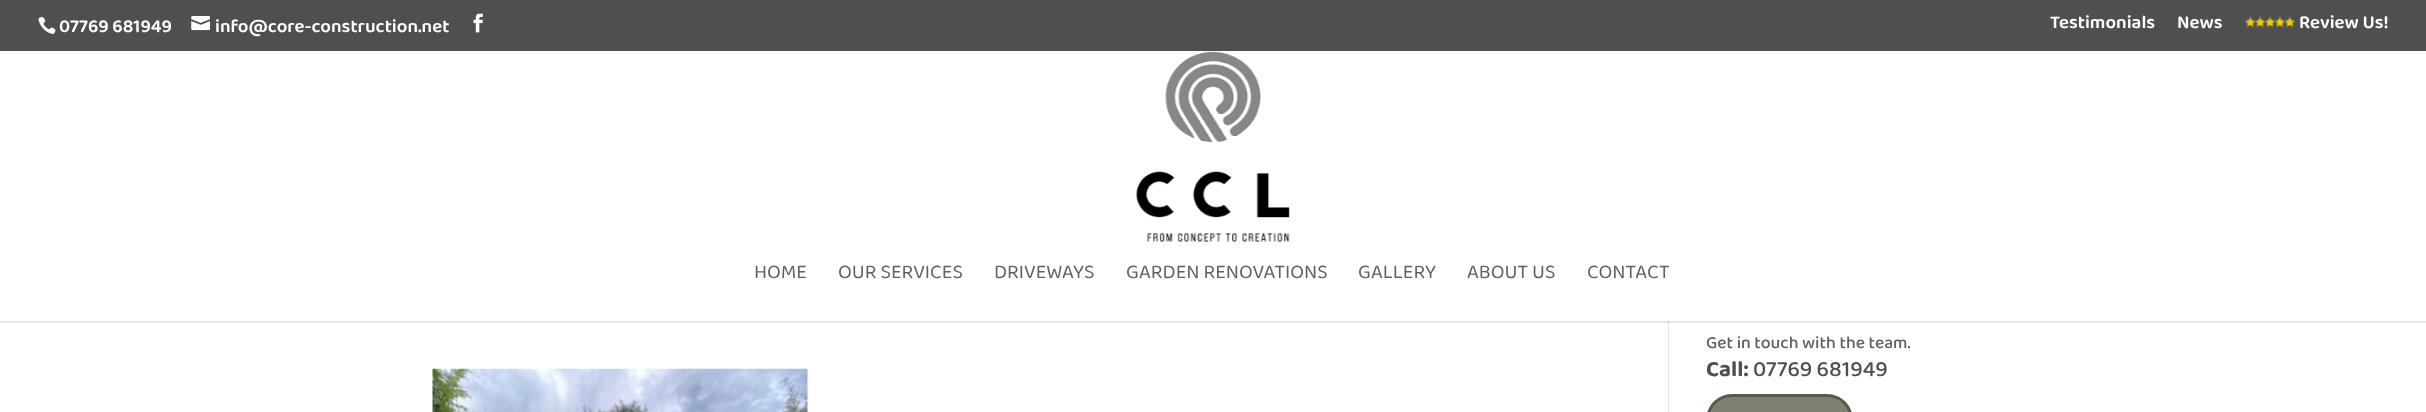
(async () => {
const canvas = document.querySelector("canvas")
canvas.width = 2426
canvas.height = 412
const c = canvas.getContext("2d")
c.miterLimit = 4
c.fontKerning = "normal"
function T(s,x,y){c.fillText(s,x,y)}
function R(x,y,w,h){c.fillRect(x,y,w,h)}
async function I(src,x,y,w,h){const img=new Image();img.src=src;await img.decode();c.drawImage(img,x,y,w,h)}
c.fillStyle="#fff"
R(0,0,2426,412)
c.fillStyle="#4f4f4f"
R(0,0,2426,51)
await I("1.png",38,17,18,18)
c.font="600 18.75px 'Baloo 2'"
c.fillStyle="#fff"
T("07769 681949",59,32)
await I("2.png",191,16,19,15)
T("info@core-construction.net",215,32)
await I("3.png",473,13,10,20)
T("Testimonials",2050,28)
T("News",2177,28)
await I("4.png",2245,16,50,12)
T("Review Us!",2299,28)
c.fillStyle="#e2e2e2"
R(1668,321,1,91)
c.fillStyle="#0000001a"
R(0,321,2426,2)
await I("5.png",1136,51,154,191)
c.font="20px 'Baloo 2'"
c.fillStyle="#606060"
T("HOME",754,278)
T("OUR SERVICES",838,278)
T("DRIVEWAYS",994,278)
T("GARDEN RENOVATIONS",1126,278)
T("GALLERY",1358,278)
T("ABOUT US",1467,278)
T("CONTACT",1587,278)
c.font="500 17.5px 'Baloo 2'"
T("Get in touch with the team.",1706,348)
c.font="bold 22.5px 'Baloo 2'"
c.fillStyle="#4f4f4f"
T("Call:",1706,376)
c.font="500 22.5px 'Baloo 2'"
T("07769 681949",1753,376)
c.fillStyle="#7f8072"
c.beginPath()
c.roundRect(1707.5,395.5,144,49,29.5)
c.fill()
c.strokeStyle="#585948"
c.lineWidth=3
c.stroke()
await I("6.png",432,368,376,44)
})()
